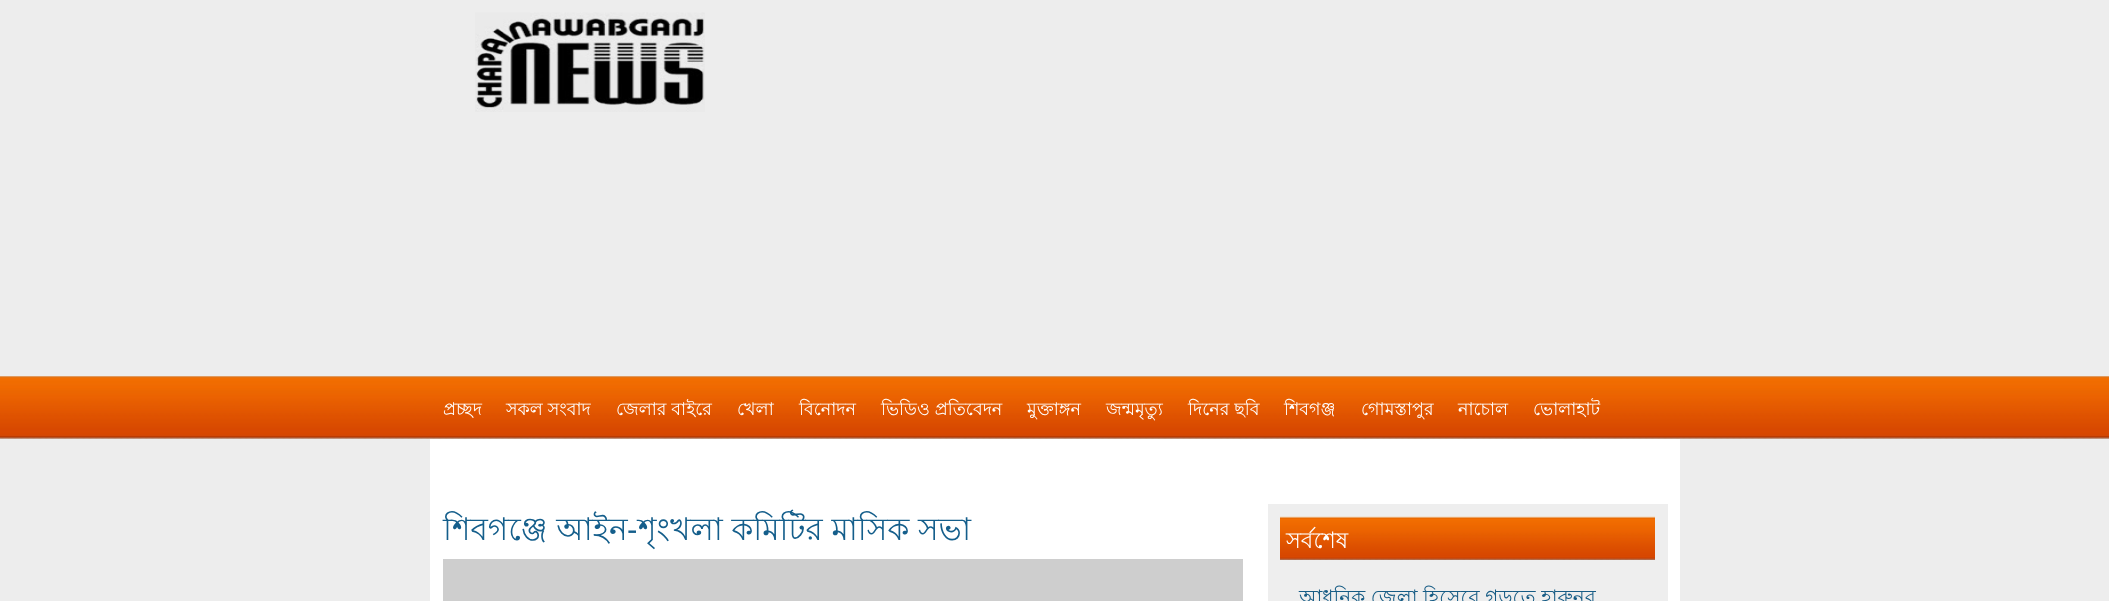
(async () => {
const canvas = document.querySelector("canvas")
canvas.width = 2109
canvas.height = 601
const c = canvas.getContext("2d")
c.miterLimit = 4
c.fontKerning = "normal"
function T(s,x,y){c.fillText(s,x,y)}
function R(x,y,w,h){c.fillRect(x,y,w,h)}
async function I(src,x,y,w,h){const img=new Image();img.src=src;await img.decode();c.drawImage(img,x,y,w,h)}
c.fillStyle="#ededed"
R(0,0,2109,601)
await I("1.png",475,12,230,100)
await I("2.png",0,376,2109,63)
c.font="17.5px Lohit Bengali"
c.fillStyle="#fff"
T("প্রচ্ছদ",443,415)
T("সকল সংবাদ",506,415)
T("জেলার বাইরে",616,415)
T("খেলা",737,415)
T("বিনোদন",799,415)
T("ভিডিও প্রতিবেদন",881,415)
T("মুক্তাঙ্গন",1027,415)
T("জন্মমৃত্যু",1106,415)
T("দিনের ছবি",1188,415)
T("শিবগঞ্জ",1284,415)
T("গোমস্তাপুর",1361,415)
T("নাচোল",1458,415)
T("ভোলাহাট",1533,415)
R(430,439,1250,162)
c.font="31.25px Lohit Bengali"
c.fillStyle="#145e8b"
T("শিবগঞ্জে আইন",443,540)
c.font="31.25px Liberation Sans"
T("-",627,540)
c.font="31.25px Lohit Bengali"
T("শৃংখলা কমিটির মাসিক সভা",638,540)
c.fillStyle="#cecece"
R(443,559,800,42)
c.fillStyle="#eee"
R(1268,504,400,97)
await I("3.png",1280,516,375,44)
c.font="22.5px Lohit Bengali"
c.fillStyle="#fff"
T("সর্বশেষ",1286,548)
c.font="20px Lohit Bengali"
c.fillStyle="#175c85"
T("আধুনিক জেলা হিসেবে গড়তে হারুনুর",1299,604)
})()
